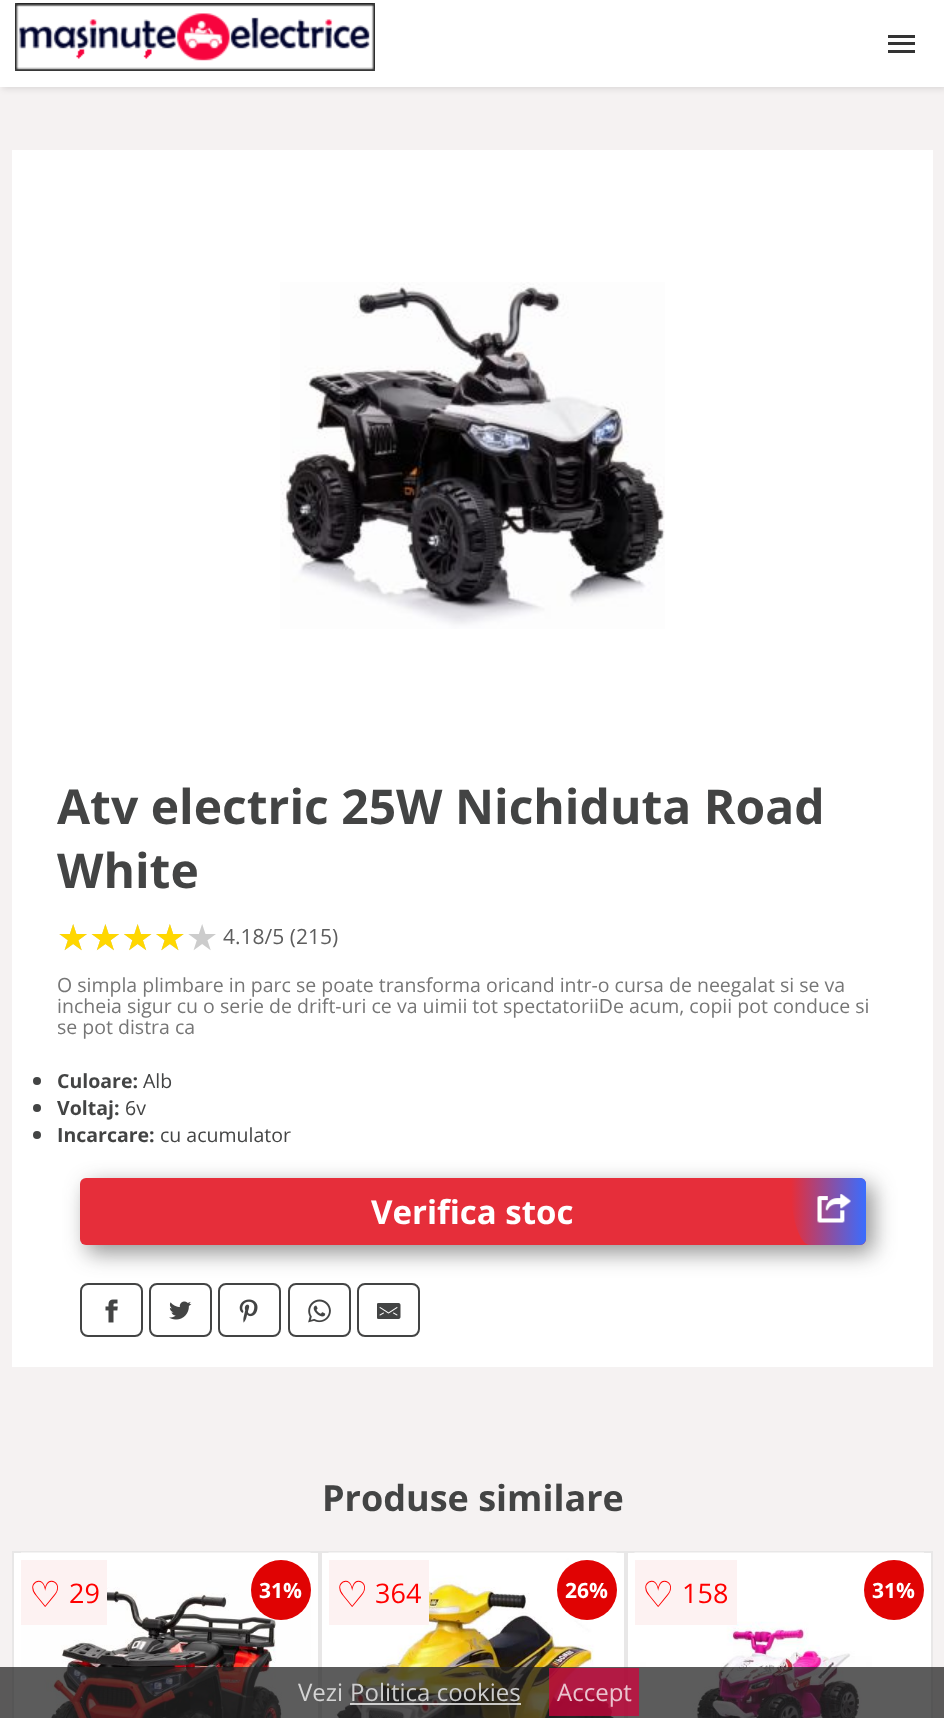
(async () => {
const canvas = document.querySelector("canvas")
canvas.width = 944
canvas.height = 1718
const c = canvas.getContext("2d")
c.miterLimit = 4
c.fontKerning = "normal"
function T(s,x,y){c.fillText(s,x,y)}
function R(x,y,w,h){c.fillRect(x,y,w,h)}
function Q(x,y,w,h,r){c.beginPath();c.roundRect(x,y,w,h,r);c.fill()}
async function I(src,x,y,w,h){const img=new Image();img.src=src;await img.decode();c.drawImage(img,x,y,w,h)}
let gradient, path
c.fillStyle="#f5f2f2"
R(0,0,944,1718)
c.fillStyle="#0000001a"
c.filter="blur(3px)"
c.beginPath()
c.rect(2,2,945,87)
c.fill()
c.filter="none"
c.fillStyle="#fff"
R(0,0,944,87)
await I("1.png",15,3,360,68)
c.fillStyle="#333"
R(888,42,27,3)
R(888,35,27,3)
R(888,50,27,3)
c.fillStyle="#fff"
R(12,150,921,1217)
await I("2.png",280,282,385,347)
c.font="bold 48px Open Sans"
c.fillStyle="#434444"
T("Atv electric 25W Nichiduta Road",57,824)
T("White",57,888)
c.font="36px DejaVu Sans"
c.fillStyle="#ccc"
T("★★★★★",57,950)
c.fillStyle="#ffd700"
T("★★★★",57,950)
c.font="21px Open Sans"
c.fillStyle="#5d5d5d"
T("4.18/5 (215)",223,944)
c.font="19.5px Open Sans"
c.fillStyle="#767676"
T("O simpla plimbare in parc se poate transforma oricand intr-o cursa de neegalat si se va",57,992)
T("incheia sigur cu o serie de drift-uri ce va uimii tot spectatoriiDe acum, copii pot conduce si",57,1013)
T("se pot distra ca",57,1034)
c.fillStyle="#434444"
c.beginPath()
c.arc(37,1081,4,0,7)
c.fill()
c.font="bold 19.5px Open Sans"
T("Culoare:",57,1088)
c.font="19.5px Open Sans"
T("Alb",143,1088)
c.beginPath()
c.arc(37,1108,4,0,7)
c.fill()
c.font="bold 19.5px Open Sans"
T("Voltaj:",57,1115)
c.font="19.5px Open Sans"
T("6v",125,1115)
c.beginPath()
c.arc(37,1135,4,0,7)
c.fill()
c.font="bold 19.5px Open Sans"
T("Incarcare:",57,1142)
c.font="19.5px Open Sans"
T("cu acumulator",160,1142)
c.fillStyle="#27272780"
c.filter="blur(11px)"
c.beginPath()
c.roundRect(87,1185,786,68,6)
c.fill()
c.filter="none"
c.fillStyle="#e62e3a"
Q(80,1178,786,67,6)
c.font="bold 33px Open Sans"
c.fillStyle="#fff"
T("Verifica stoc",371,1224)
gradient = c.createLinearGradient(791,1211,866,1211)
gradient.addColorStop(0,"#e62e3a")
gradient.addColorStop(1,"#396dff")
c.fillStyle = gradient
path = new Path2D("M790 1178h70c3 0 6 2 6 6v55c0 3-3 6-6 6h-50c-11 0-20-30-20-67z")
c.fill(path)
await I("3.png",817,1194,34,29)
c.beginPath()
c.roundRect(81,1284,61,52,7)
c.strokeStyle="#434444"
c.lineWidth=2
c.stroke()
await I("4.png",105,1299,13,24)
c.beginPath()
c.roundRect(150,1284,61,52,7)
c.stroke()
await I("5.png",169,1301,23,19)
c.beginPath()
c.roundRect(219,1284,61,52,7)
c.stroke()
await I("6.png",239,1299,19,24)
c.beginPath()
c.roundRect(289,1284,61,52,7)
c.stroke()
await I("7.png",308,1299,23,24)
c.beginPath()
c.roundRect(358,1284,61,52,7)
c.stroke()
await I("8.png",377,1303,24,16)
c.font="bold 36px Open Sans"
c.fillStyle="#434444"
T("Produse similare",322,1511)
c.fillStyle="#fff"
c.beginPath()
c.rect(13,1552,306,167)
c.fill()
c.strokeStyle="#e8e7e7"
c.stroke()
await I("9.png",21,1552,290,166)
c.fillStyle="#fdf2f2"
R(21,1560,86,65)
c.font="36px DejaVu Sans"
c.fillStyle="#f00"
T("♡",29,1607)
c.font="27px Open Sans"
T("29",69,1603)
c.fillStyle="#e00303"
c.beginPath()
c.arc(281,1590,30,0,7)
c.fill()
c.font="bold 21px Open Sans"
c.fillStyle="#fff"
T("31%",259,1598)
c.beginPath()
c.rect(321,1552,304,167)
c.fill()
c.stroke()
await I("10.png",328,1552,289,166)
c.fillStyle="#fdf2f2"
R(329,1560,100,65)
c.font="36px DejaVu Sans"
c.fillStyle="#f00"
T("♡",336,1607)
c.font="27px Open Sans"
T("364",375,1603)
c.fillStyle="#e00303"
c.beginPath()
c.arc(587,1590,30,0,7)
c.fill()
c.font="bold 21px Open Sans"
c.fillStyle="#fff"
T("26%",565,1598)
c.beginPath()
c.rect(627,1552,305,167)
c.fill()
c.stroke()
await I("11.png",634,1552,290,166)
c.fillStyle="#fdf2f2"
R(635,1560,102,65)
c.font="36px DejaVu Sans"
c.fillStyle="#f00"
T("♡",642,1607)
c.font="27px Open Sans"
T("158",682,1603)
c.fillStyle="#e00303"
c.beginPath()
c.arc(894,1590,30,0,7)
c.fill()
c.font="bold 21px Open Sans"
c.fillStyle="#fff"
T("31%",872,1598)
c.fillStyle="#232323bd"
R(0,1667,944,51)
c.font="24px Open Sans"
c.fillStyle="#d4d4d4"
T("Vezi",298,1701)
c.fillStyle="#ccc"
T("Politica cookies",350,1701)
c.fillStyle="#ffffffbd"
R(350,1703,171,2)
c.fillStyle="#d0033cbd"
R(549,1668,90,48)
c.fillStyle="#eac3ce"
T("Accept",557,1701)
})()
